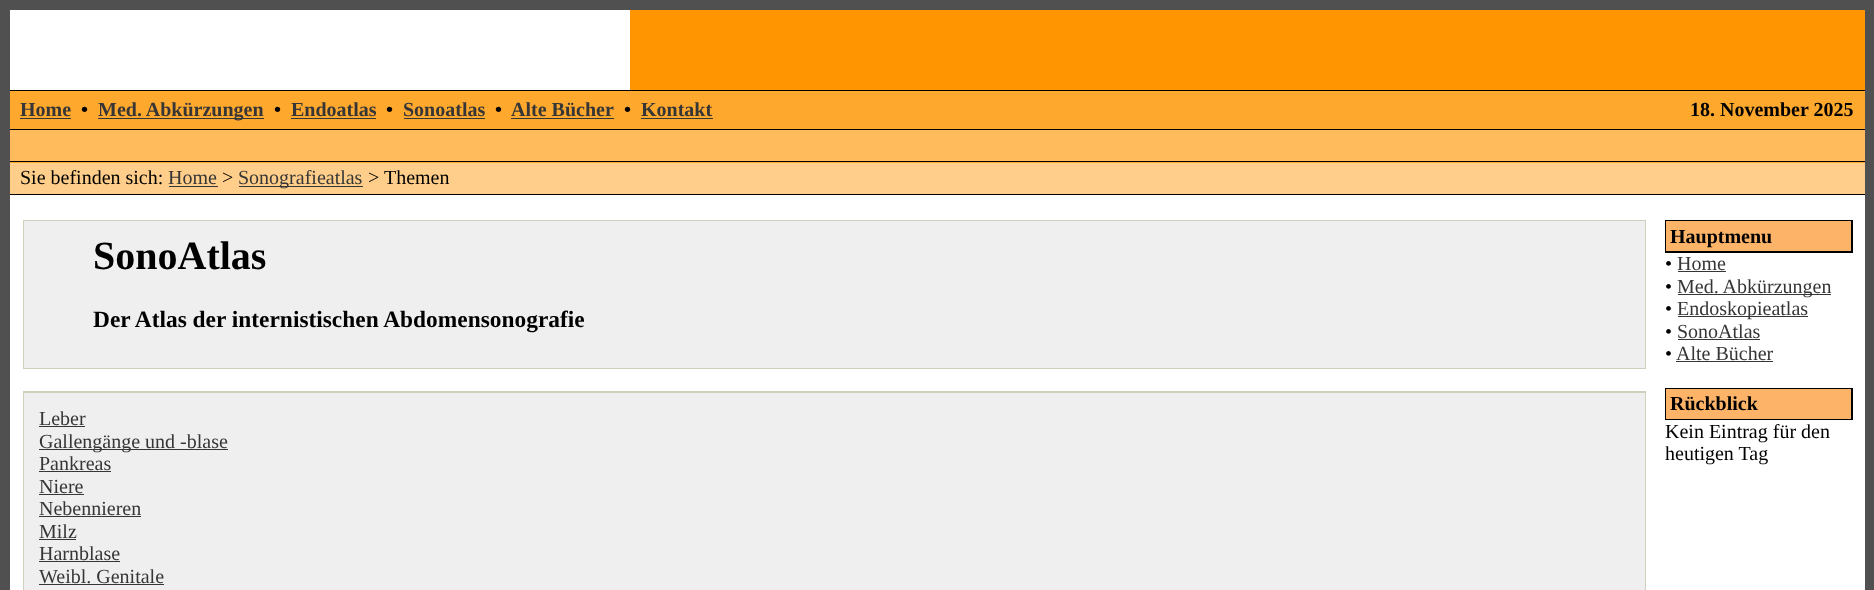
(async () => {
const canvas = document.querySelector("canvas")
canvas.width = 1874
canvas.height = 590
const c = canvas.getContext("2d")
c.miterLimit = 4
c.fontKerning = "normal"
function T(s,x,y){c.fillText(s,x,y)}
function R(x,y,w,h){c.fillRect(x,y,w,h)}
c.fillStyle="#505050"
R(0,0,1874,590)
c.fillStyle="#fff"
R(10,10,620,80)
c.fillStyle="#ff9500"
R(630,10,1235,80)
c.fillStyle="#ffa82e"
R(10,91,1855,72)
c.fillStyle="#000"
R(10,90,1855,1)
c.font="bold 20px Liberation Serif"
c.fillStyle="#363636"
T("Home",20,116)
R(20,118,51,1)
c.fillStyle="#000"
T("•",81,116)
c.fillStyle="#363636"
R(98,118,166,1)
T("Med. Abkürzungen",98,116)
c.fillStyle="#000"
T("•",274,116)
c.fillStyle="#363636"
T("Endoatlas",291,116)
R(291,118,85,1)
c.fillStyle="#000"
T("•",386,116)
c.fillStyle="#363636"
T("Sonoatlas",403,116)
R(404,118,81,1)
c.fillStyle="#000"
T("•",495,116)
c.fillStyle="#363636"
T("Alte Bücher",511,116)
R(511,118,103,1)
c.fillStyle="#000"
T("•",624,116)
c.fillStyle="#363636"
T("Kontakt",641,116)
R(641,118,72,1)
c.fillStyle="#000"
T("18. November 2025",1690,116)
R(10,129,1855,1)
c.fillStyle="#ffbb5c"
R(10,130,1855,31)
c.fillStyle="#000"
R(10,161,1855,1)
c.fillStyle="#ffce8a"
R(10,163,1855,31)
c.font="20px Liberation Serif"
c.fillStyle="#000"
T("Sie befinden sich:",20,184)
c.fillStyle="#363636"
T("Home",168,184)
R(169,186,49,1)
c.fillStyle="#000"
T(">",222,184)
c.fillStyle="#363636"
R(239,186,124,1)
T("Sonografieatlas",238,184)
c.fillStyle="#000"
T("> Themen",368,184)
R(10,194,1855,1)
c.fillStyle="#fff"
R(10,195,1855,395)
c.fillStyle="#cfcfbb"
R(23,220,1623,149)
c.fillStyle="#efefef"
R(24,221,1621,147)
c.font="bold 40px Liberation Serif"
c.fillStyle="#000"
T("SonoAtlas",93,269)
c.font="bold 23.4px Liberation Serif"
T("Der Atlas der internistischen Abdomensonografie",93,327)
c.fillStyle="#cfcfbb"
R(23,391,1623,199)
c.fillStyle="#efefef"
R(24,393,1621,197)
c.font="20px Liberation Serif"
c.fillStyle="#363636"
T("Leber",39,425)
R(39,426,46,1)
R(39,449,189,1)
T("Gallengänge und -blase",39,448)
T("Pankreas",39,470)
R(39,471,72,1)
T("Niere",39,493)
R(39,494,45,1)
T("Nebennieren",39,515)
R(39,516,102,1)
T("Milz",39,538)
R(39,539,37,1)
T("Harnblase",39,560)
R(39,561,81,1)
T("Weibl. Genitale",39,583)
R(39,584,125,1)
c.fillStyle="#000"
R(1665,220,188,33)
c.fillStyle="#fdb468"
R(1666,221,185,30)
c.font="bold 20px Liberation Serif"
c.fillStyle="#000"
T("Hauptmenu",1670,243)
c.font="20px Liberation Serif"
T("•",1665,270)
c.fillStyle="#363636"
T("Home",1677,270)
R(1678,271,48,1)
c.fillStyle="#000"
T("•",1665,293)
c.fillStyle="#363636"
R(1678,294,153,1)
T("Med. Abkürzungen",1677,293)
c.fillStyle="#000"
T("•",1665,315)
c.fillStyle="#363636"
R(1678,316,130,1)
T("Endoskopieatlas",1677,315)
c.fillStyle="#000"
T("•",1665,338)
c.fillStyle="#363636"
T("SonoAtlas",1677,338)
R(1678,339,82,1)
c.fillStyle="#000"
T("•",1665,360)
c.fillStyle="#363636"
T("Alte Bücher",1676,360)
R(1676,361,97,1)
c.fillStyle="#000"
R(1665,388,188,32)
c.fillStyle="#fdb468"
R(1666,389,185,30)
c.font="bold 20px Liberation Serif"
c.fillStyle="#000"
T("Rückblick",1670,410)
c.font="20px Liberation Serif"
T("Kein Eintrag für den",1665,438)
T("heutigen Tag",1665,460)
})()
